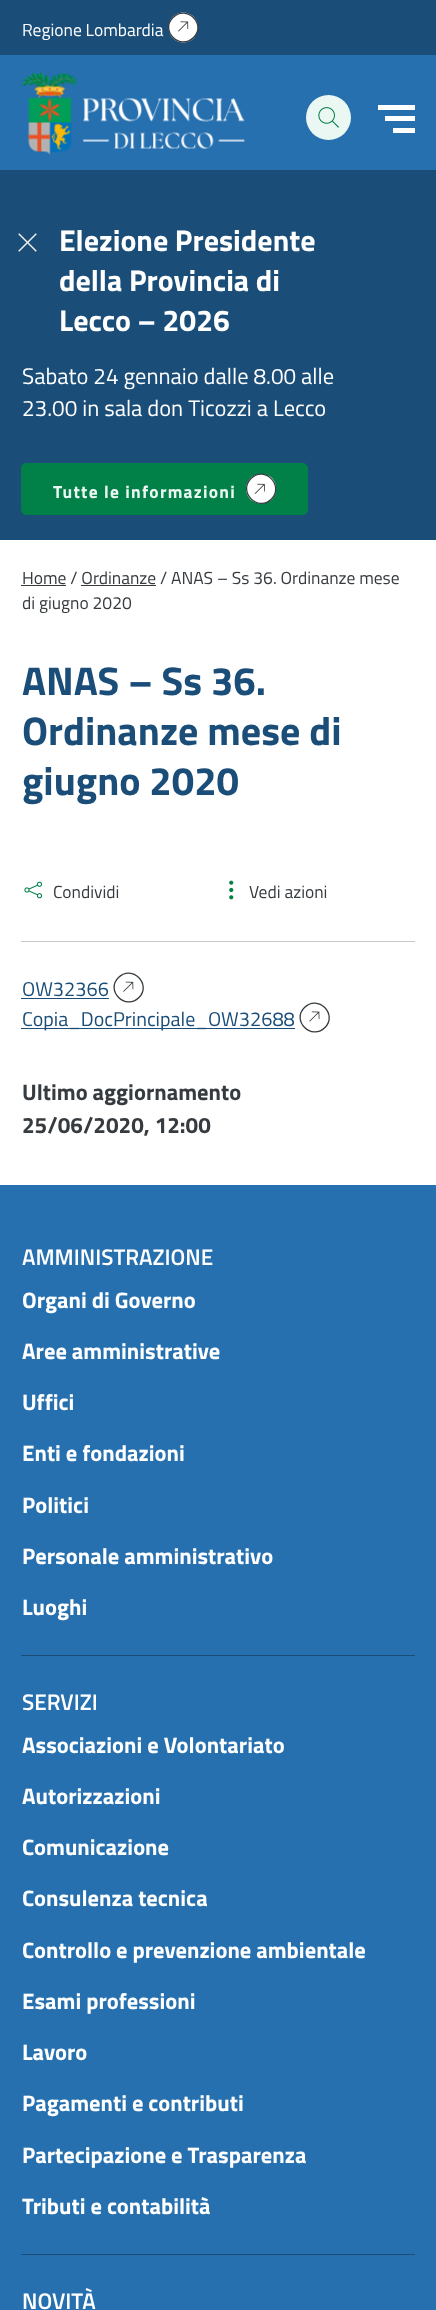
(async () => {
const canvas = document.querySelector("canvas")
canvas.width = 436
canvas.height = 2310
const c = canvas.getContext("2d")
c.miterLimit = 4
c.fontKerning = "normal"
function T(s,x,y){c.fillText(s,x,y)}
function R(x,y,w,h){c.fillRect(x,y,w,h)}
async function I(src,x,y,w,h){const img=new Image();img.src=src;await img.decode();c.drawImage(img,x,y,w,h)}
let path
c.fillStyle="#fff"
R(0,0,436,2310)
c.fillStyle="#2670af"
R(0,55,436,115)
c.fillStyle="#1a4d78"
R(0,0,436,55)
c.font="17.5px Titillium Web"
c.fillStyle="#fff"
T("Regione Lombardia",22,36)
path = new Path2D("M172.5 17c6-6 15.5-6 21.5 0c5.5 6 5.5 15 0 21c-6 6-15.5 6-21.5 0c-5.5-6-5.5-15 0-21z")
c.fill(path)
path = new Path2D("M173 17.5c13.5-13.5 34 7 20.5 20c-13.5 13.5-34-7-20.5-20z")
c.strokeStyle="#363b3f"
c.lineWidth=1.3
c.stroke(path)
await I("1.png",178,21,11,11)
await I("2.png",21,72,224,83)
c.fillStyle="#ebf7f2"
c.beginPath()
c.arc(328.5,117.5,22.5,0,7)
c.fill()
await I("3.png",318,107,21,21)
c.fillStyle="#fff"
R(378,105,37,5)
R(385,116,30,5)
R(393,128,22,5)
c.fillStyle="#1a4d78"
R(0,170,436,370)
await I("4.png",18,233,19,19)
c.font="bold 30px Titillium Web"
c.fillStyle="#fff"
T("Elezione Presidente",59,251)
T("della Provincia di",59,291)
T("Lecco – 2026",59,331)
c.font="22.5px Titillium Web"
T("Sabato 24 gennaio dalle 8.00 alle",22,384)
T("23.00 in sala don Ticozzi a Lecco",22,416)
c.fillStyle="#018048"
c.beginPath()
c.roundRect(21.5,463.5,286,51,4.5)
c.fill()
c.strokeStyle="#018048"
c.lineWidth=1
c.stroke()
c.letterSpacing="1.25px"
c.font="bold 17.5px Titillium Web"
c.fillStyle="#ebf7f2"
T("Tutte le informazioni",53,498)
c.fillStyle="#fff"
path = new Path2D("M250.5 478c6-5.5 15.5-5.5 21.5 0c5.5 6 5.5 15.5 0 21.5c-6 5.5-15.5 5.5-21.5 0c-6-6-6-15.5 0-21.5z")
c.fill(path)
path = new Path2D("M251 478.5c13.5-13.5 33.5 7 20.5 20.5c-13.5 13.5-34-7-20.5-20.5z")
c.strokeStyle="#363b3f"
c.lineWidth=1.3
c.stroke(path)
await I("5.png",254,483,11,11)
c.letterSpacing="0px"
c.font="17.5px Titillium Web"
c.fillStyle="#363b3f"
T("Home / Ordinanze / ANAS – Ss 36. Ordinanze mese",22,584)
R(21,585,45,1)
R(81,585,75,1)
T("di giugno 2020",22,609)
c.font="bold 40px Titillium Web"
c.fillStyle="#1a4d78"
T("ANAS – Ss 36.",22,695)
T("Ordinanze mese di",22,745)
T("giugno 2020",22,795)
await I("6.png",24,881,19,18)
c.font="17.5px Titillium Web"
c.fillStyle="#363b3f"
T("Condividi",53,898)
await I("7.png",229,880,5,20)
T("Vedi azioni",249,898)
c.fillStyle="#c4c8cb"
R(21,941,394,1)
c.font="20px Titillium Web"
c.fillStyle="#1a4d78"
T("OW32366",22,996)
R(21,998,88,1)
path = new Path2D("M118.5 977.5c13.5-13.5 33.5 7 20.5 20c-13.5 13.5-34-7-20.5-20z")
c.stroke(path)
await I("8.png",123,981,11,11)
R(21,1028,274,1)
T("Copia_DocPrincipale_OW32688",22,1026)
path = new Path2D("M304.5 1007.5c13.5-13.5 33.5 7 20.5 20c-13.5 13.5-34-7-20.5-20z")
c.stroke(path)
await I("9.png",309,1011,11,11)
c.font="bold 22.5px Titillium Web"
c.fillStyle="#363b3f"
T("Ultimo aggiornamento",22,1100)
T("25/06/2020, 12:00",22,1133)
c.fillStyle="#2670af"
R(0,1185,436,1125)
c.fillStyle="#1a4d78"
R(21,1655,394,1)
c.font="600 22.5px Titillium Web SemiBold"
c.fillStyle="#fff"
T("AMMINISTRAZIONE",22,1265)
c.font="bold 22.5px Titillium Web"
T("Organi di Governo",22,1308)
T("Aree amministrative",22,1359)
T("Uffici",22,1410)
T("Enti e fondazioni",22,1461)
T("Politici",22,1513)
T("Personale amministrativo",22,1564)
T("Luoghi",22,1615)
c.fillStyle="#1a4d78"
R(21,2254,394,1)
c.font="600 22.5px Titillium Web SemiBold"
c.fillStyle="#fff"
T("SERVIZI",22,1710)
c.font="bold 22.5px Titillium Web"
T("Associazioni e Volontariato",22,1753)
T("Autorizzazioni",22,1804)
T("Comunicazione",22,1855)
T("Consulenza tecnica",22,1906)
T("Controllo e prevenzione ambientale",22,1958)
T("Esami professioni",22,2009)
T("Lavoro",22,2060)
T("Pagamenti e contributi",22,2111)
T("Partecipazione e Trasparenza",22,2163)
T("Tributi e contabilità",22,2214)
c.font="600 22.5px Titillium Web SemiBold"
T("NOVITÀ",22,2309)
})()
